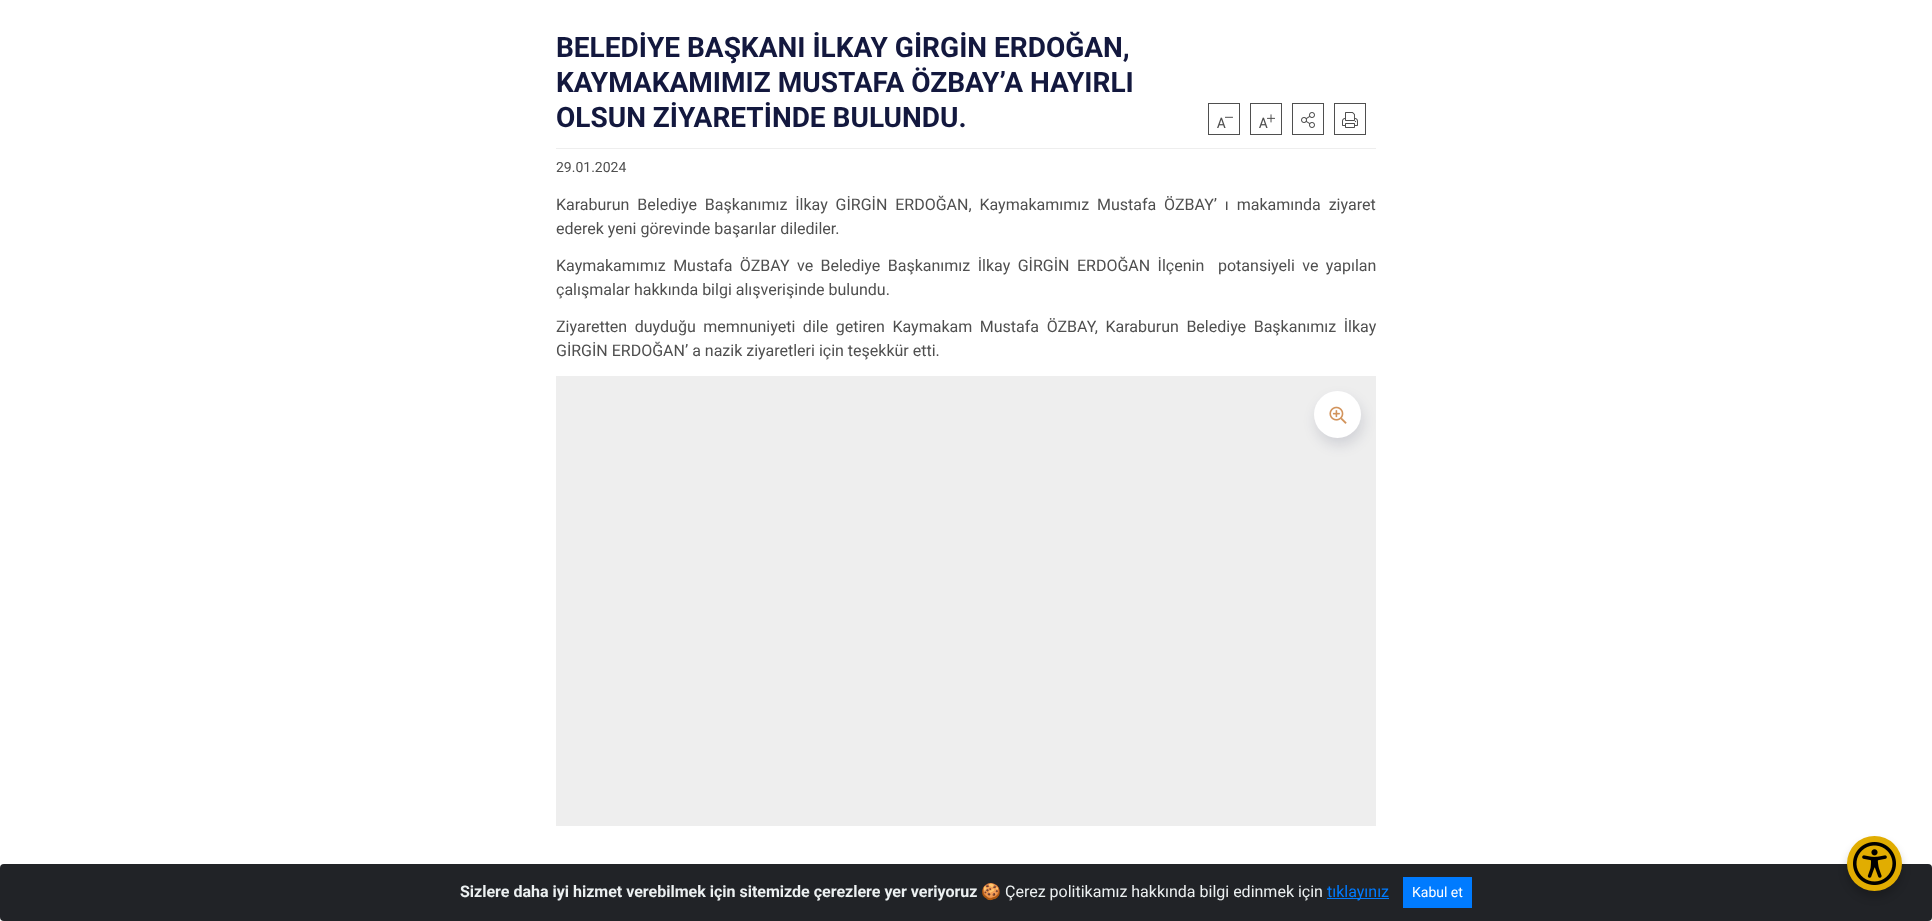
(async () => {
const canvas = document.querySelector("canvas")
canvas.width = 1932
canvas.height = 921
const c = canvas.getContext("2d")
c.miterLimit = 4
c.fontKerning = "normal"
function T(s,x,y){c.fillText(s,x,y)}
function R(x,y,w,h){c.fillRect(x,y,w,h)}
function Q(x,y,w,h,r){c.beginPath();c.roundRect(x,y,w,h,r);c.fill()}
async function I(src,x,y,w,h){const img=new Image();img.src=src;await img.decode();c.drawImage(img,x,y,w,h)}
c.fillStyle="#fff"
R(0,0,1932,921)
c.fillStyle="#eee"
R(556,148,820,1)
c.font="bold 28px Roboto"
c.fillStyle="#13183e"
T("BELEDİYE BAŞKANI İLKAY GİRGİN ERDOĞAN,",556,57)
T("KAYMAKAMIMIZ MUSTAFA ÖZBAY’A HAYIRLI",556,92)
T("OLSUN ZİYARETİNDE BULUNDU.",556,127)
c.strokeStyle="#4f4f4f"
c.strokeRect(1208.5,103.5,31,31)
await I("1.png",1217,116,16,12)
c.strokeRect(1250.5,103.5,31,31)
await I("2.png",1259,114,16,14)
c.strokeRect(1292.5,103.5,31,31)
await I("3.png",1301,112,14,16)
c.strokeRect(1334.5,103.5,31,31)
await I("4.png",1342,112,16,16)
c.font="14px Roboto"
c.fillStyle="#4f4f4f"
T("29.01.2024",556,172)
c.wordSpacing="3.9px"
c.font="16px Roboto"
T("Karaburun Belediye Başkanımız İlkay GİRGİN ERDOĞAN, Kaymakamımız Mustafa ÖZBAY’ ı makamında ziyaret",556,210)
c.wordSpacing="0px"
T("ederek yeni görevinde başarılar dilediler.",556,234)
c.wordSpacing="3.5px"
T("Kaymakamımız Mustafa ÖZBAY ve Belediye Başkanımız İlkay GİRGİN ERDOĞAN İlçenin",556,271)
T("potansiyeli ve yapılan",1218,271)
c.wordSpacing="0px"
T("çalışmalar hakkında bilgi alışverişinde bulundu.",556,295)
c.wordSpacing="3.6px"
T("Ziyaretten duyduğu memnuniyeti dile getiren Kaymakam Mustafa ÖZBAY, Karaburun Belediye Başkanımız İlkay",556,332)
c.wordSpacing="0px"
T("GİRGİN ERDOĞAN’ a nazik ziyaretleri için teşekkür etti.",556,356)
c.fillStyle="#eee"
R(556,376,820,450)
c.fillStyle="#13183e21"
c.filter="blur(6.5px)"
c.beginPath()
c.roundRect(1316,398,47,47,23.5)
c.fill()
c.filter="none"
c.fillStyle="#fff"
c.beginPath()
c.arc(1337.5,414.5,23.5,0,7)
c.fill()
await I("5.png",1329,406,18,18)
c.fillStyle="#212327"
Q(0,864,1932,57,4)
c.font="bold 16px Roboto"
c.fillStyle="#ecf0f1"
T("Sizlere daha iyi hizmet verebilmek için sitemizde çerezlere yer veriyoruz",460,897)
c.font="16px Noto Color Emoji"
T("🍪",981,897)
c.font="16px Roboto"
T("Çerez politikamız hakkında bilgi edinmek için",1005,897)
c.fillStyle="#007bff"
R(1327,898,62,1)
T("tıklayınız",1327,897)
R(1403,877,69,31)
c.font="14px Roboto"
c.fillStyle="#fff"
T("Kabul et",1412,897)
c.fillStyle="#00000033"
c.filter="blur(4px)"
c.beginPath()
c.roundRect(1847,842,55,55,27.5)
c.fill()
c.filter="none"
c.fillStyle="#e1ad01"
c.beginPath()
c.arc(1874.5,863.5,27.5,0,7)
c.fill()
await I("6.png",1853,842,43,43)
})()
